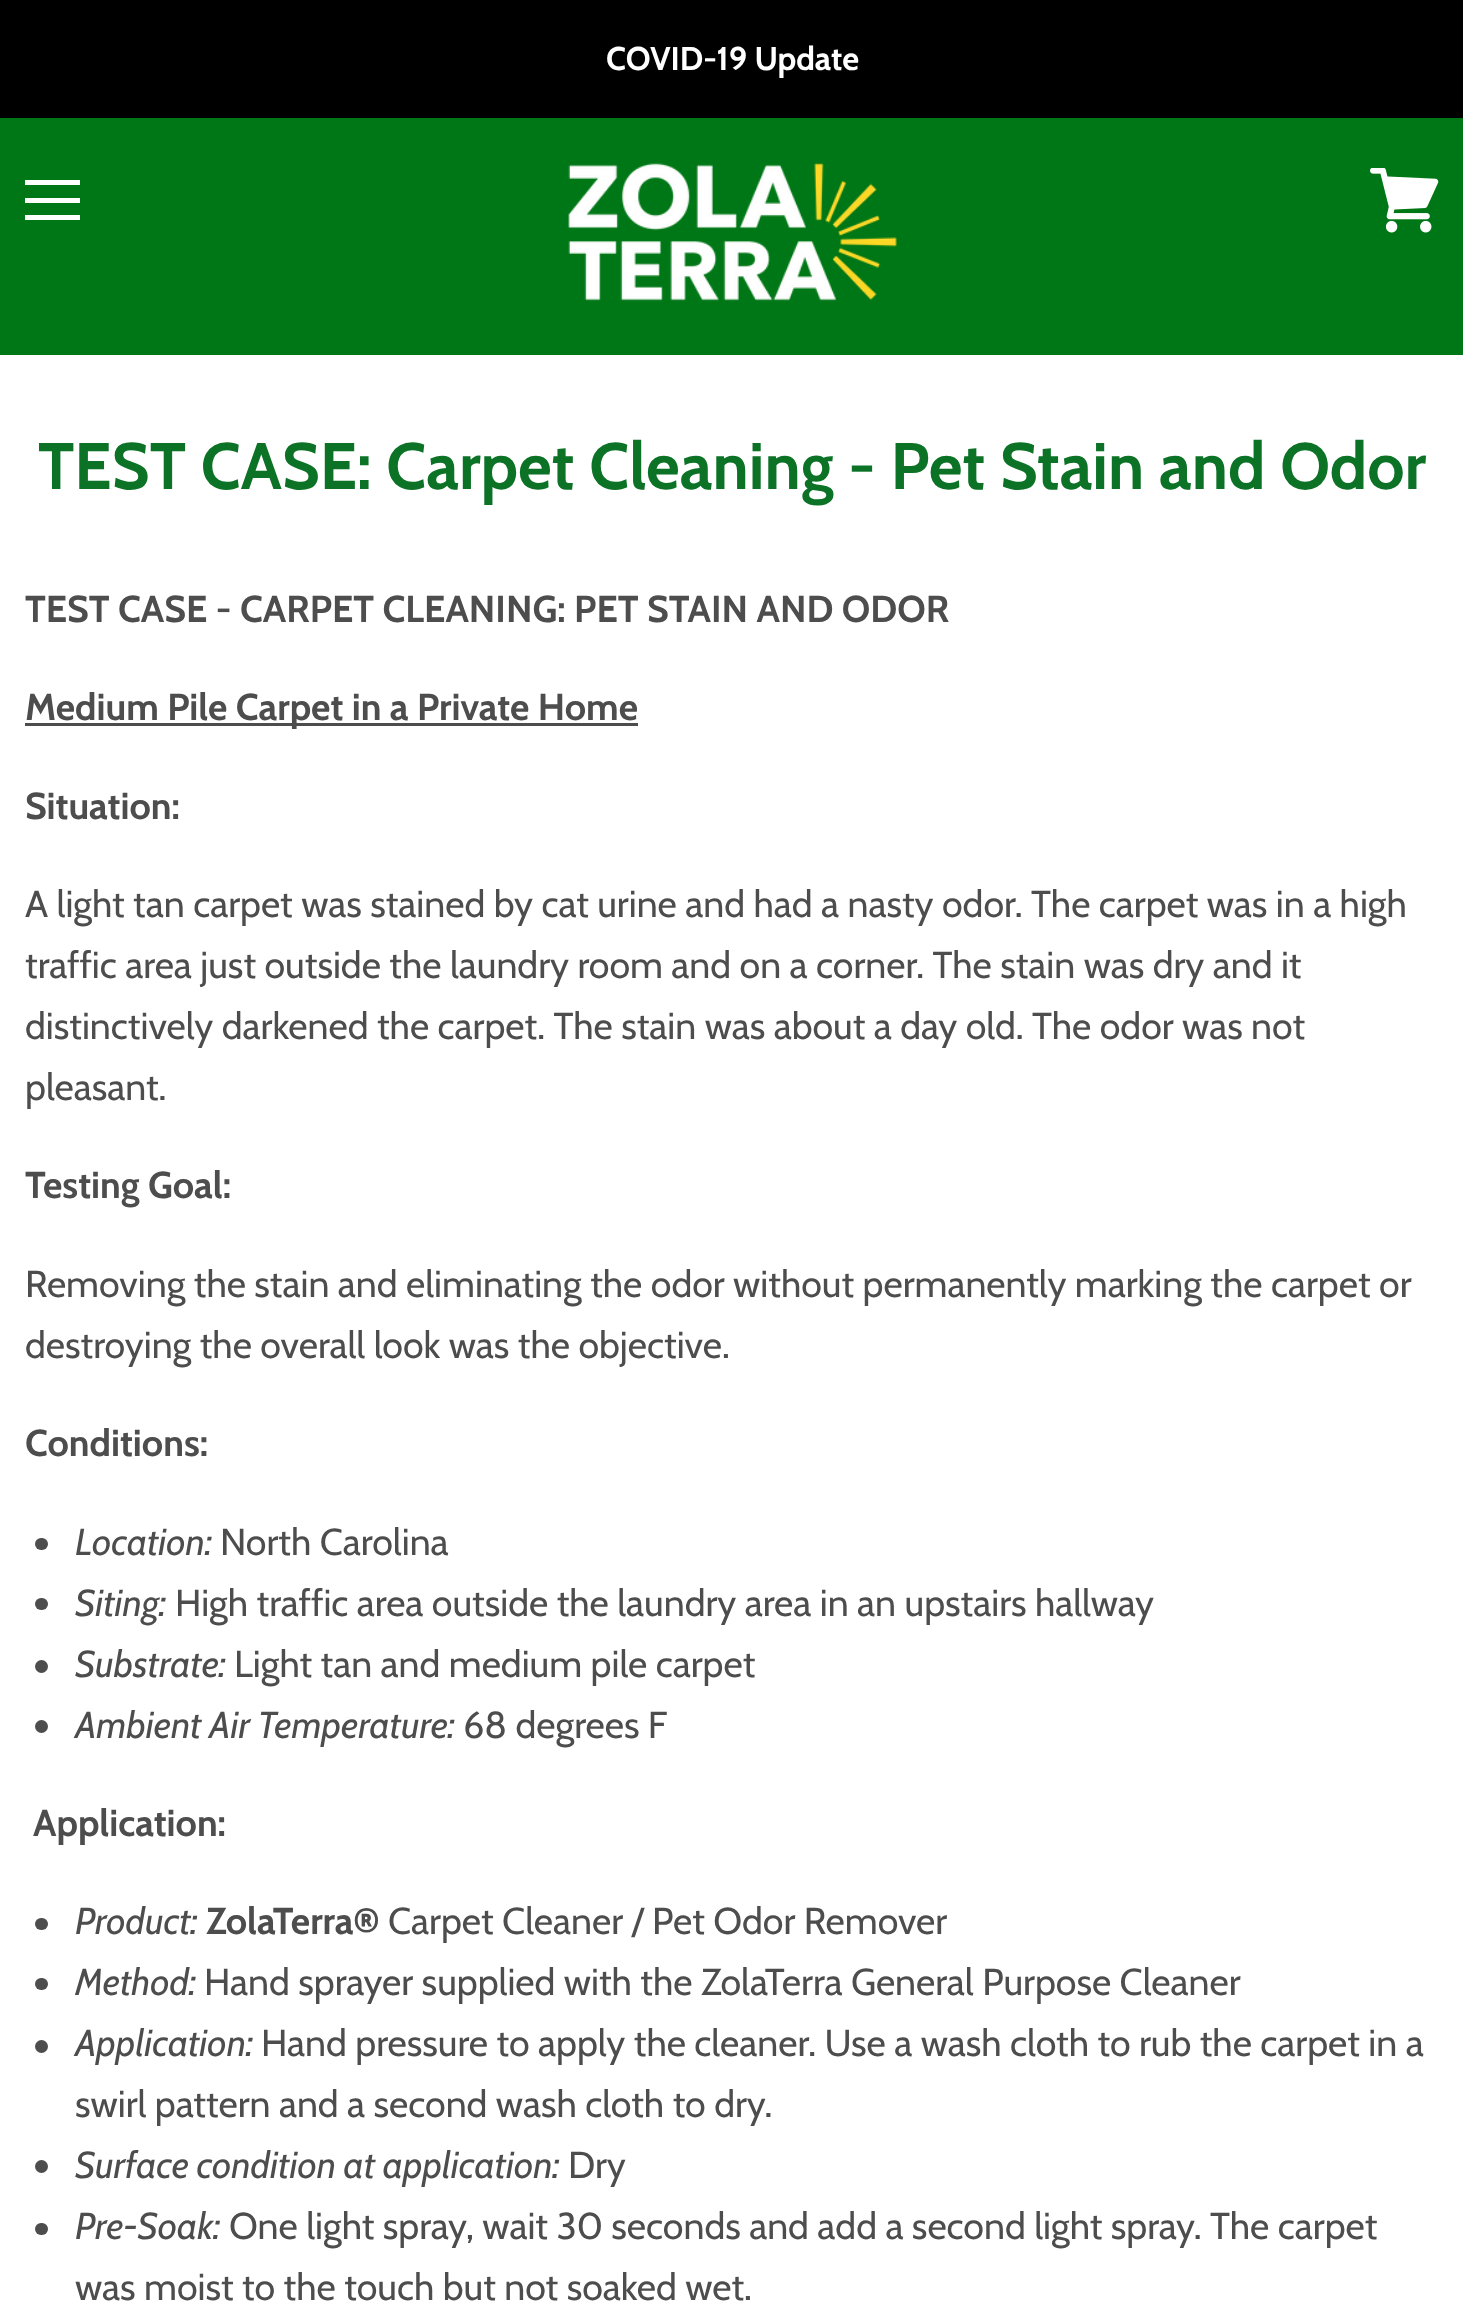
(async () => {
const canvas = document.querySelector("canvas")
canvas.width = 1463
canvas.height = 2320
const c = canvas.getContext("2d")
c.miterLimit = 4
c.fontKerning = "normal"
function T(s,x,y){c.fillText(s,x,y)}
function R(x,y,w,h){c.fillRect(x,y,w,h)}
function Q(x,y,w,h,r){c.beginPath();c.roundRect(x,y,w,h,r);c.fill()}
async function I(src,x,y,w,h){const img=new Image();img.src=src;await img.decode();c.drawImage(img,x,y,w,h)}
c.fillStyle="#fff"
R(0,0,1463,2320)
c.fillStyle="#000"
R(0,0,1463,118)
c.font="bold 32.75px Cabin"
c.fillStyle="#fff"
T("COVID-19 Update",606,70)
c.fillStyle="#007716"
R(0,118,1463,237)
c.fillStyle="#fff"
R(25,180,55,5)
R(25,198,55,5)
R(25,215,55,5)
await I("1.png",568,163,329,138)
await I("2.png",1370,168,69,65)
c.font="bold 65.6px Cabin"
c.fillStyle="#0b7226"
T("TEST CASE: Carpet Cleaning - Pet Stain and Odor",38,489)
c.font="bold 37.5px Cabin"
c.fillStyle="#4d4d4d"
T("TEST CASE - CARPET CLEANING: PET STAIN AND ODOR",25,622)
R(25,723,613,3)
T("Medium Pile Carpet in a Private Home",25,720)
T("Situation:",25,819)
c.font="37.5px Cabin"
T("A light tan carpet was stained by cat urine and had a nasty odor. The carpet was in a high",25,917)
T("traffic area just outside the laundry room and on a corner. The stain was dry and it",25,978)
T("distinctively darkened the carpet. The stain was about a day old. The odor was not",25,1039)
T("pleasant.",25,1100)
c.font="bold 37.5px Cabin"
T("Testing Goal:",25,1198)
c.font="37.5px Cabin"
T("Removing the stain and eliminating the odor without permanently marking the carpet or",25,1297)
T("destroying the overall look was the objective.",25,1358)
c.font="bold 37.5px Cabin"
T("Conditions:",25,1456)
Q(35,1538,13,12,6)
c.font="italic 37.5px Cabin"
T("Location:",75,1555)
c.font="37.5px Cabin"
T("North Carolina",220,1555)
Q(35,1598,13,12,6)
c.font="italic 37.5px Cabin"
T("Siting:",75,1616)
c.font="37.5px Cabin"
T("High traffic area outside the laundry area in an upstairs hallway",175,1616)
c.beginPath()
c.arc(41.5,1666.5,6.5,0,7)
c.fill()
c.font="italic 37.5px Cabin"
T("Substrate:",75,1677)
c.font="37.5px Cabin"
T("Light tan and medium pile carpet",234,1677)
c.beginPath()
c.arc(41.5,1726.5,6.5,0,7)
c.fill()
c.font="italic 37.5px Cabin"
T("Ambient Air Temperature:",75,1738)
c.font="37.5px Cabin"
T("68 degrees F",463,1738)
c.font="bold 37.5px Cabin"
T("Application:",33,1836)
Q(35,1918,13,12,6)
c.font="italic 37.5px Cabin"
T("Product:",75,1934)
c.font="bold 37.5px Cabin"
T("ZolaTerra®",206,1934)
c.font="37.5px Cabin"
T("Carpet Cleaner / Pet Odor Remover",388,1934)
Q(35,1978,13,12,6)
c.font="italic 37.5px Cabin"
T("Method:",75,1995)
c.font="37.5px Cabin"
T("Hand sprayer supplied with the ZolaTerra General Purpose Cleaner",204,1995)
c.beginPath()
c.arc(41.5,2046.5,6.5,0,7)
c.fill()
c.font="italic 37.5px Cabin"
T("Application:",75,2056)
c.font="37.5px Cabin"
T("Hand pressure to apply the cleaner. Use a wash cloth to rub the carpet in a",261,2056)
T("swirl pattern and a second wash cloth to dry.",75,2117)
c.beginPath()
c.arc(41.5,2166.5,6.5,0,7)
c.fill()
c.font="italic 37.5px Cabin"
T("Surface condition at application:",75,2178)
c.font="37.5px Cabin"
T("Dry",568,2178)
Q(35,2223,13,12,6)
c.font="italic 37.5px Cabin"
T("Pre-Soak:",75,2239)
c.font="37.5px Cabin"
T("One light spray, wait 30 seconds and add a second light spray. The carpet",229,2239)
T("was moist to the touch but not soaked wet.",75,2300)
})()
